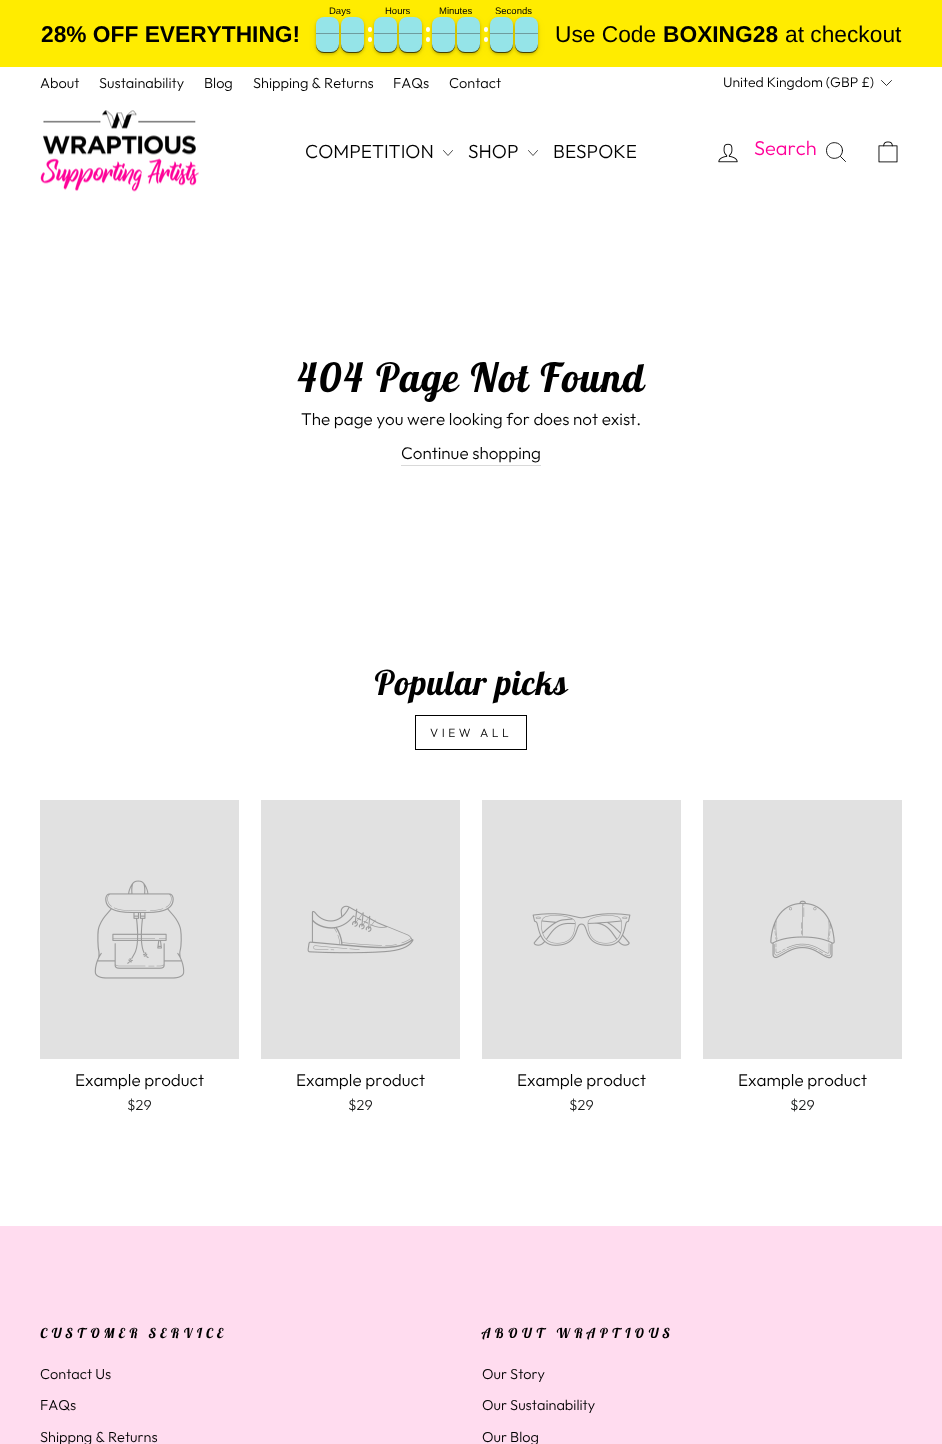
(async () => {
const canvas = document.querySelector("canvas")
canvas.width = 942
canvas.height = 1444
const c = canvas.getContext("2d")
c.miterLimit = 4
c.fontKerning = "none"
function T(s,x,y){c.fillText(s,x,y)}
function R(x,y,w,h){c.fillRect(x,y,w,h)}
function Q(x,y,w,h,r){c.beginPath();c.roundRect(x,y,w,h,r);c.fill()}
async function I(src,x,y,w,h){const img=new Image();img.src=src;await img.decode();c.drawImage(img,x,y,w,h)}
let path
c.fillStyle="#fff"
R(0,0,942,1444)
c.fillStyle="#ffec00"
R(0,0,942,67)
c.fillStyle="#0000000d"
c.filter="blur(4px)"
c.beginPath()
c.roundRect(316,20,23,35,8)
c.fill()
c.filter="none"
c.fillStyle="#0000003d"
c.filter="blur(1.5px)"
c.beginPath()
c.roundRect(316,19,23,35,8)
c.fill()
c.filter="none"
c.fillStyle="#00000066"
c.filter="blur(0.5px)"
c.beginPath()
c.roundRect(316,35,23,18,8)
c.fill()
c.filter="none"
c.fillStyle="#0000000d"
c.filter="blur(4px)"
c.beginPath()
c.roundRect(341,20,23,35,8)
c.fill()
c.filter="none"
c.fillStyle="#0000003d"
c.filter="blur(1.5px)"
c.beginPath()
c.roundRect(341,19,23,35,8)
c.fill()
c.filter="none"
c.fillStyle="#00000066"
c.filter="blur(0.5px)"
c.beginPath()
c.roundRect(341,35,23,18,8)
c.fill()
c.filter="none"
c.fillStyle="#95e4e8"
c.beginPath()
c.roundRect(316,17,23,17,[8,8,0,0])
c.fill()
c.fillStyle="#33333366"
R(316,33,23,1)
c.fillStyle="#00000066"
c.filter="blur(0.5px)"
c.beginPath()
c.roundRect(316,35,23,18,8)
c.fill()
c.filter="none"
c.fillStyle="#95e4e8"
c.beginPath()
c.roundRect(316,34,23,18,[0,0,8,8])
c.fill()
c.fillStyle="#cccccc1a"
R(316,34,23,1)
c.fillStyle="#fff"
Q(368,27,4,5,2)
Q(368,37,4,5,2)
c.fillStyle="#0000000d"
c.filter="blur(4px)"
c.beginPath()
c.roundRect(374,20,23,35,8)
c.fill()
c.filter="none"
c.fillStyle="#95e4e8"
c.beginPath()
c.roundRect(341,17,23,17,[8,8,0,0])
c.fill()
c.fillStyle="#33333366"
R(341,33,23,1)
c.fillStyle="#00000066"
c.filter="blur(0.5px)"
c.beginPath()
c.roundRect(341,35,23,18,8)
c.fill()
c.filter="none"
c.fillStyle="#95e4e8"
c.beginPath()
c.roundRect(341,34,23,18,[0,0,8,8])
c.fill()
c.fillStyle="#cccccc1a"
R(341,34,23,1)
c.font="9.5px Liberation Sans"
c.fillStyle="#000"
T("Days",329,14)
c.fillStyle="#0000003d"
c.filter="blur(1.5px)"
c.beginPath()
c.roundRect(374,19,23,35,8)
c.fill()
c.filter="none"
c.fillStyle="#00000066"
c.filter="blur(0.5px)"
c.beginPath()
c.roundRect(374,35,23,18,8)
c.fill()
c.filter="none"
c.fillStyle="#0000000d"
c.filter="blur(4px)"
c.beginPath()
c.roundRect(399,20,23,35,8)
c.fill()
c.filter="none"
c.fillStyle="#0000003d"
c.filter="blur(1.5px)"
c.beginPath()
c.roundRect(399,19,23,35,8)
c.fill()
c.filter="none"
c.fillStyle="#00000066"
c.filter="blur(0.5px)"
c.beginPath()
c.roundRect(399,35,23,18,8)
c.fill()
c.filter="none"
c.fillStyle="#95e4e8"
c.beginPath()
c.roundRect(374,17,23,17,[8,8,0,0])
c.fill()
c.fillStyle="#33333366"
R(374,33,23,1)
c.fillStyle="#00000066"
c.filter="blur(0.5px)"
c.beginPath()
c.roundRect(374,35,23,18,8)
c.fill()
c.filter="none"
c.fillStyle="#95e4e8"
c.beginPath()
c.roundRect(374,34,23,18,[0,0,8,8])
c.fill()
c.fillStyle="#cccccc1a"
R(374,34,23,1)
c.fillStyle="#000"
T("Hours",385,14)
c.fillStyle="#fff"
Q(426,27,4,5,2)
Q(426,37,4,5,2)
c.fillStyle="#0000000d"
c.filter="blur(4px)"
c.beginPath()
c.roundRect(432,20,23,35,8)
c.fill()
c.filter="none"
c.fillStyle="#95e4e8"
c.beginPath()
c.roundRect(399,17,23,17,[8,8,0,0])
c.fill()
c.fillStyle="#33333366"
R(399,33,23,1)
c.fillStyle="#00000066"
c.filter="blur(0.5px)"
c.beginPath()
c.roundRect(399,35,23,18,8)
c.fill()
c.filter="none"
c.fillStyle="#95e4e8"
c.beginPath()
c.roundRect(399,34,23,18,[0,0,8,8])
c.fill()
c.fillStyle="#cccccc1a"
R(399,34,23,1)
c.fillStyle="#0000003d"
c.filter="blur(1.5px)"
c.beginPath()
c.roundRect(432,19,23,35,8)
c.fill()
c.filter="none"
c.fillStyle="#00000066"
c.filter="blur(0.5px)"
c.beginPath()
c.roundRect(432,35,23,18,8)
c.fill()
c.filter="none"
c.fillStyle="#0000000d"
c.filter="blur(4px)"
c.beginPath()
c.roundRect(457,20,23,35,8)
c.fill()
c.filter="none"
c.fillStyle="#0000003d"
c.filter="blur(1.5px)"
c.beginPath()
c.roundRect(457,19,23,35,8)
c.fill()
c.filter="none"
c.fillStyle="#00000066"
c.filter="blur(0.5px)"
c.beginPath()
c.roundRect(457,35,23,18,8)
c.fill()
c.filter="none"
c.fillStyle="#95e4e8"
c.beginPath()
c.roundRect(432,17,23,17,[8,8,0,0])
c.fill()
c.fillStyle="#33333366"
R(432,33,23,1)
c.fillStyle="#00000066"
c.filter="blur(0.5px)"
c.beginPath()
c.roundRect(432,35,23,18,8)
c.fill()
c.filter="none"
c.fillStyle="#95e4e8"
c.beginPath()
c.roundRect(432,34,23,18,[0,0,8,8])
c.fill()
c.fillStyle="#cccccc1a"
R(432,34,23,1)
c.fillStyle="#000"
T("Minutes",439,14)
c.fillStyle="#fff"
Q(484,27,4,5,2)
Q(484,37,4,5,2)
c.fillStyle="#0000000d"
c.filter="blur(4px)"
c.beginPath()
c.roundRect(490,20,23,35,8)
c.fill()
c.filter="none"
c.fillStyle="#95e4e8"
c.beginPath()
c.roundRect(457,17,23,17,[8,8,0,0])
c.fill()
c.fillStyle="#33333366"
R(457,33,23,1)
c.fillStyle="#00000066"
c.filter="blur(0.5px)"
c.beginPath()
c.roundRect(457,35,23,18,8)
c.fill()
c.filter="none"
c.fillStyle="#95e4e8"
c.beginPath()
c.roundRect(457,34,23,18,[0,0,8,8])
c.fill()
c.fillStyle="#cccccc1a"
R(457,34,23,1)
c.fillStyle="#0000003d"
c.filter="blur(1.5px)"
c.beginPath()
c.roundRect(490,19,23,35,8)
c.fill()
c.filter="none"
c.fillStyle="#00000066"
c.filter="blur(0.5px)"
c.beginPath()
c.roundRect(490,35,23,18,8)
c.fill()
c.filter="none"
c.fillStyle="#0000000d"
c.filter="blur(4px)"
c.beginPath()
c.roundRect(515,20,23,35,8)
c.fill()
c.filter="none"
c.fillStyle="#0000003d"
c.filter="blur(1.5px)"
c.beginPath()
c.roundRect(515,19,23,35,8)
c.fill()
c.filter="none"
c.fillStyle="#00000066"
c.filter="blur(0.5px)"
c.beginPath()
c.roundRect(515,35,23,18,8)
c.fill()
c.filter="none"
c.fillStyle="#95e4e8"
c.beginPath()
c.roundRect(490,17,23,17,[8,8,0,0])
c.fill()
c.fillStyle="#33333366"
R(490,33,23,1)
c.fillStyle="#00000066"
c.filter="blur(0.5px)"
c.beginPath()
c.roundRect(490,35,23,18,8)
c.fill()
c.filter="none"
c.fillStyle="#95e4e8"
c.beginPath()
c.roundRect(490,34,23,18,[0,0,8,8])
c.fill()
c.fillStyle="#cccccc1a"
R(490,34,23,1)
c.fillStyle="#000"
T("Seconds",495,14)
c.fillStyle="#95e4e8"
c.beginPath()
c.roundRect(515,17,23,17,[8,8,0,0])
c.fill()
c.fillStyle="#33333366"
R(515,33,23,1)
c.fillStyle="#00000066"
c.filter="blur(0.5px)"
c.beginPath()
c.roundRect(515,35,23,18,8)
c.fill()
c.filter="none"
c.fillStyle="#95e4e8"
c.beginPath()
c.roundRect(515,34,23,18,[0,0,8,8])
c.fill()
c.fillStyle="#cccccc1a"
R(515,34,23,1)
c.font="bold 22.75px Liberation Sans"
c.fillStyle="#000"
T("28% OFF EVERYTHING!",41,42)
c.font="22.75px Liberation Sans"
T("Use Code",555,42)
c.font="bold 22.75px Liberation Sans"
T("BOXING28",663,42)
c.font="22.75px Liberation Sans"
T("at checkout",785,42)
c.font="300 14.5px Outfit"
T("About",40,88)
T("Sustainability",99,88)
T("Blog",204,88)
T("Shipping & Returns",253,88)
T("FAQs",393,88)
T("Contact",449,88)
c.font="300 14px Outfit"
T("United Kingdom (GBP £)",723,87)
path = new Path2D("M881.5 80.5l5 5l5-5")
c.strokeStyle="#000"
c.lineWidth=0.8
c.lineCap="round"
c.lineJoin="round"
c.stroke(path)
await I("1.png",40,110,159,82)
c.font="300 19px Outfit"
T("COMPETITION",305,158)
path = new Path2D("M443.5 150.5l4.5 5l4.5-5")
c.lineWidth=0.7
c.stroke(path)
T("SHOP",468,158)
path = new Path2D("M528.5 150.5l4.5 5l4.5-5")
c.stroke(path)
T("BESPOKE",553,158)
await I("2.png",718,143,20,20)
c.font="300 20px Outfit"
c.fillStyle="#ff0098"
T("Search",754,155)
path = new Path2D("M842.5 150.5c0 10.5-16 10.5-16 0c0-10.5 16-10.5 16 0zm3 11l-5-5")
c.lineWidth=0.9
c.stroke(path)
await I("3.png",878,141,20,22)
c.letterSpacing="1px"
c.font="italic bold 40px Lobster Two"
c.fillStyle="#000"
T("404 Page Not Found",297,392)
c.letterSpacing="0px"
c.font="300 17px Outfit"
T("The page you were looking for does not exist.",301,425)
c.fillStyle="#d9d9d9"
R(401,465,140,1)
c.fillStyle="#000"
T("Continue shopping",401,459)
c.letterSpacing="0.8px"
c.font="italic bold 34px Lobster Two"
T("Popular picks",373,695)
c.lineWidth=1
c.lineJoin="miter"
c.strokeRect(415.5,715.5,111,34)
c.letterSpacing="3.5px"
c.font="300 12px Outfit"
T("VIEW ALL",430,737)
c.fillStyle="#e1e1e1"
R(40,800,199,259)
await I("4.png",94,880,91,99)
c.letterSpacing="0px"
c.font="300 17px Outfit"
c.fillStyle="#000"
T("Example product",75,1086)
c.font="300 14.5px Outfit"
c.fillStyle="#1c1d1d"
T("$29",127,1110)
c.fillStyle="#e1e1e1"
R(261,800,199,259)
await I("5.png",307,905,107,49)
c.font="300 17px Outfit"
c.fillStyle="#000"
T("Example product",296,1086)
c.font="300 14.5px Outfit"
c.fillStyle="#1c1d1d"
T("$29",348,1110)
c.fillStyle="#e1e1e1"
R(482,800,199,259)
await I("6.png",532,913,99,33)
c.font="300 17px Outfit"
c.fillStyle="#000"
T("Example product",517,1086)
c.font="300 14.5px Outfit"
c.fillStyle="#1c1d1d"
T("$29",569,1110)
c.fillStyle="#e1e1e1"
R(703,800,199,259)
await I("7.png",770,900,65,59)
c.font="300 17px Outfit"
c.fillStyle="#000"
T("Example product",738,1086)
c.font="300 14.5px Outfit"
c.fillStyle="#1c1d1d"
T("$29",790,1110)
c.fillStyle="#ffdcef"
R(0,1226,942,218)
c.letterSpacing="4.1px"
c.font="italic bold 13.6px Lobster Two"
c.fillStyle="#000"
T("CUSTOMER SERVICE",40,1338)
c.letterSpacing="0px"
c.font="300 14.5px Outfit"
T("Contact Us",40,1379)
T("FAQs",40,1410)
T("Shippng & Returns",40,1442)
c.letterSpacing="4.1px"
c.font="italic bold 13.6px Lobster Two"
T("ABOUT WRAPTIOUS",482,1338)
c.letterSpacing="0px"
c.font="300 14.5px Outfit"
T("Our Story",482,1379)
T("Our Sustainability",482,1410)
T("Our Blog",482,1442)
})()
